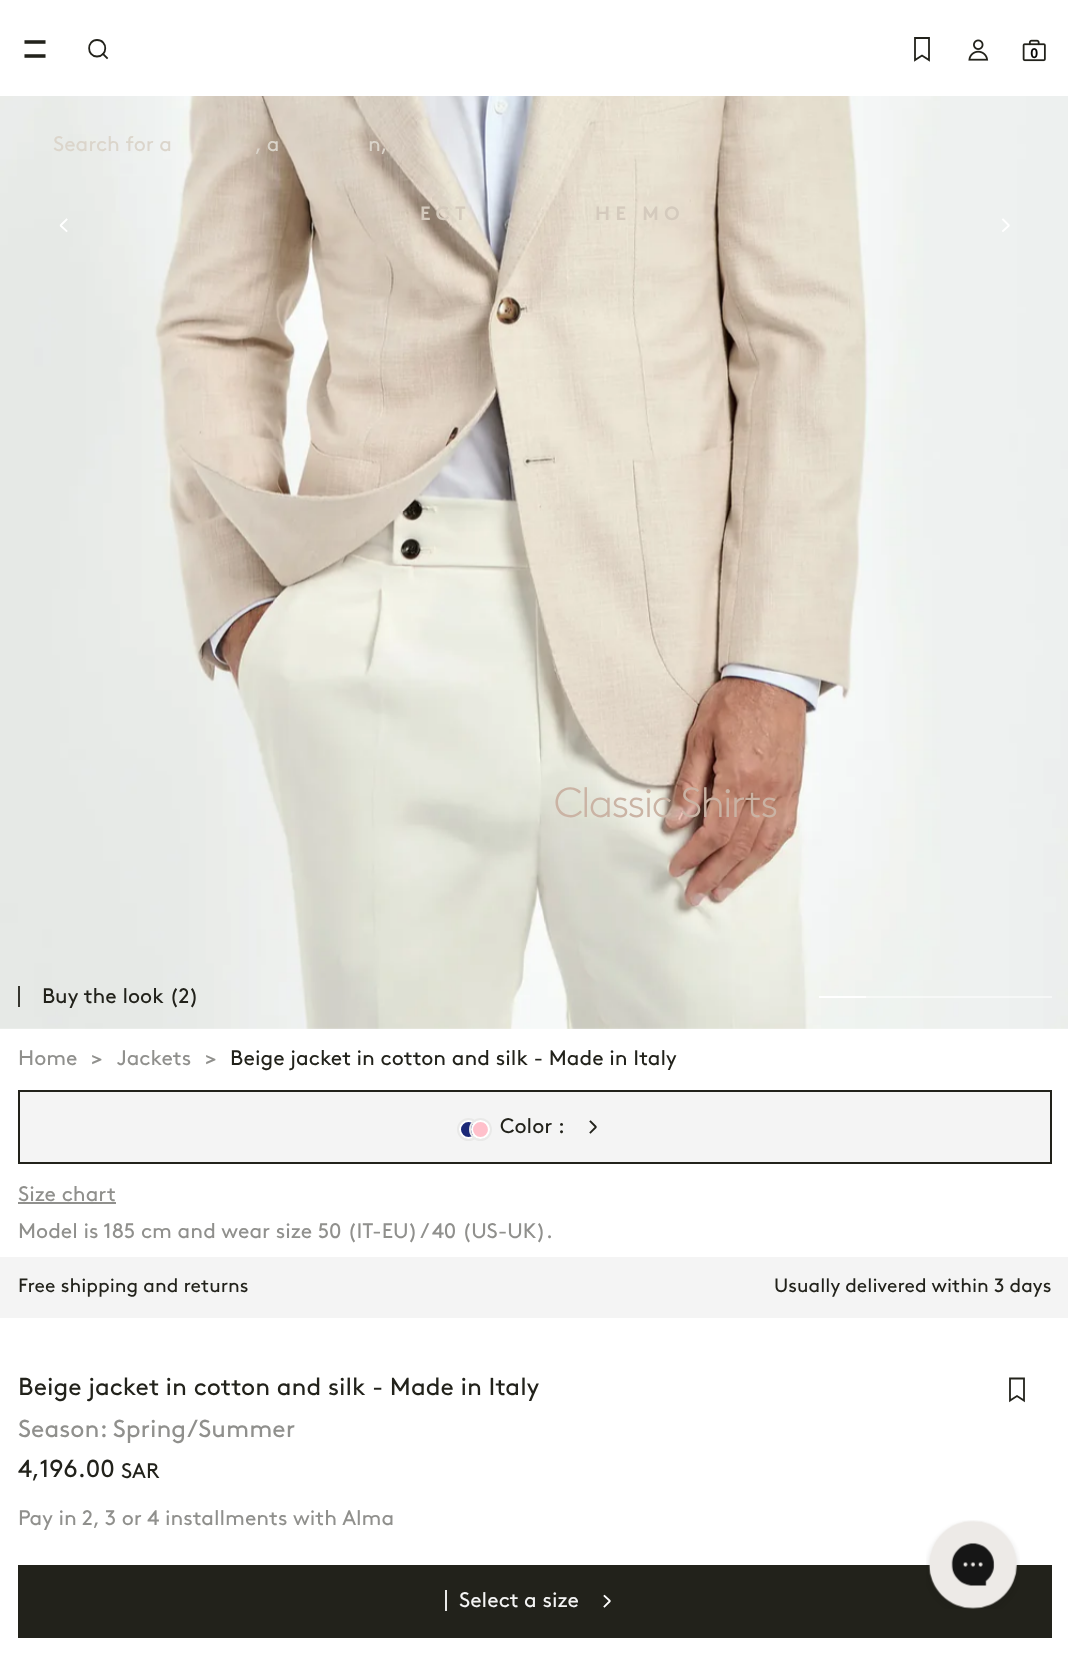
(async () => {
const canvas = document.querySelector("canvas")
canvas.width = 1068
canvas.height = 1654
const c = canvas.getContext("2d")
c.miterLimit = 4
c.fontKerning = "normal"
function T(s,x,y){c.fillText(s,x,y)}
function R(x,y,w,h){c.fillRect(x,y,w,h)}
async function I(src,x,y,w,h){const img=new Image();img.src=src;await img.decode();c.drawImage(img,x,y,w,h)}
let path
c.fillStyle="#fff"
R(0,0,1068,1654)
await I("1.png",24,40,22,18)
path = new Path2D("M97 56.5c11 0 11-16.5 0-16.5c-10.5 0-10.5 16.5 0 16.5z")
c.strokeStyle="#22221b"
c.lineWidth=1.8
c.lineCap="round"
c.lineJoin="round"
c.stroke(path)
path = new Path2D("M103 54l4 4")
c.lineCap="square"
c.stroke(path)
path = new Path2D("M929 60v-22h-14v22l7-4.5z")
c.lineCap="round"
c.lineJoin="miter"
c.stroke(path)
await I("2.png",968,39,21,22)
await I("3.png",1022,39,24,23)
c.font="bold 14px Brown"
c.fillStyle="#060605"
T("0",1030,58)
await I("4.png",0,96,1068,933)
c.font="21px Brown"
c.fillStyle="#dbd5cb"
T("Search for a",53,151)
T(", a",255,151)
T("n,",368,151)
c.letterSpacing="5.5px"
c.font="bold 19.25px Brown"
c.fillStyle="#d4cabd"
T("ECT",420,220)
T("HE MO",595,220)
c.letterSpacing="-1.75px"
c.font="300 42px Brown"
c.fillStyle="#cab3a4"
T("Classic Shirts",554,817)
path = new Path2D("M66.5 219.5l-6 6l6 5.5")
c.strokeStyle="#fff"
c.lineWidth=1.9
c.lineCap="square"
c.lineJoin="bevel"
c.stroke(path)
path = new Path2D("M1003 219.5l6 6l-6 5.5")
c.stroke(path)
c.fillStyle="#ffffff80"
R(866,996,186,2)
c.fillStyle="#fff"
R(819,996,47,2)
c.fillStyle="#36362f"
R(18,986,2,21)
c.letterSpacing="0px"
c.font="21px Brown"
c.fillStyle="#22221b"
T("Buy the look (2)",42,1003)
c.fillStyle="#90908d"
T("Home",18,1065)
T(">",91,1065)
T("Jackets",117,1065)
T(">",205,1065)
c.fillStyle="#22221b"
T("Beige jacket in cotton and silk - Made in Italy",230,1065)
c.fillStyle="#f4f4f4"
c.beginPath()
c.rect(19,1091,1032,72)
c.fill()
c.strokeStyle="#22221b"
c.lineWidth=2
c.lineJoin="miter"
c.stroke()
c.fillStyle="#1c2978"
c.beginPath()
c.arc(468.5,1129.5,8.5,0,7)
c.fill()
c.strokeStyle="#fff"
c.stroke()
c.beginPath()
c.arc(468.5,1129.5,10.5,0,7)
c.strokeStyle="#e9e9e8"
c.stroke()
c.fillStyle="#ffc0cb"
c.beginPath()
c.arc(480.5,1129.5,8.5,0,7)
c.fill()
c.strokeStyle="#fff"
c.stroke()
c.beginPath()
c.arc(480.5,1129.5,10.5,0,7)
c.strokeStyle="#e9e9e8"
c.stroke()
c.fillStyle="#22221b"
T("Color :",500,1133)
path = new Path2D("M590.5 1121.5l5.5 5.5l-5.5 5.5")
c.strokeStyle="#22221b"
c.lineWidth=1.8
c.lineJoin="bevel"
c.stroke(path)
c.fillStyle="#90908d"
T("Size chart",18,1201)
R(18,1202,98,2)
T("Model is 185 cm and wear size 50 (IT-EU) / 40 (US-UK).",18,1238)
c.fillStyle="#f4f4f4"
R(0,1257,1068,61)
c.font="19.25px Brown"
c.fillStyle="#22221b"
T("Free shipping and returns",18,1292)
T("Usually delivered within 3 days",774,1292)
c.font="24.5px Brown"
T("Beige jacket in cotton and silk - Made in Italy",18,1395)
path = new Path2D("M1024 1400.5v-22h-14v22l7-4.5z")
c.lineCap="round"
c.lineJoin="miter"
c.stroke(path)
c.fillStyle="#90908d"
T("Season: Spring/Summer",18,1437)
c.fillStyle="#22221b"
T("4,196.00",18,1477)
c.font="21px Brown"
T("SAR",121,1478)
c.fillStyle="#90908d"
T("Pay in 2, 3 or 4 installments with Alma",18,1525)
c.fillStyle="#22221b"
R(18,1565,1034,73)
c.fillStyle="#e9e9e8"
R(445,1590,2,21)
c.fillStyle="#f4f4f4"
T("Select a size",459,1607)
path = new Path2D("M604.5 1596l5.5 5l-5.5 5.5")
c.strokeStyle="#fff"
c.lineCap="square"
c.lineJoin="bevel"
c.stroke(path)
await I("5.png",926,1520,94,89)
})()
